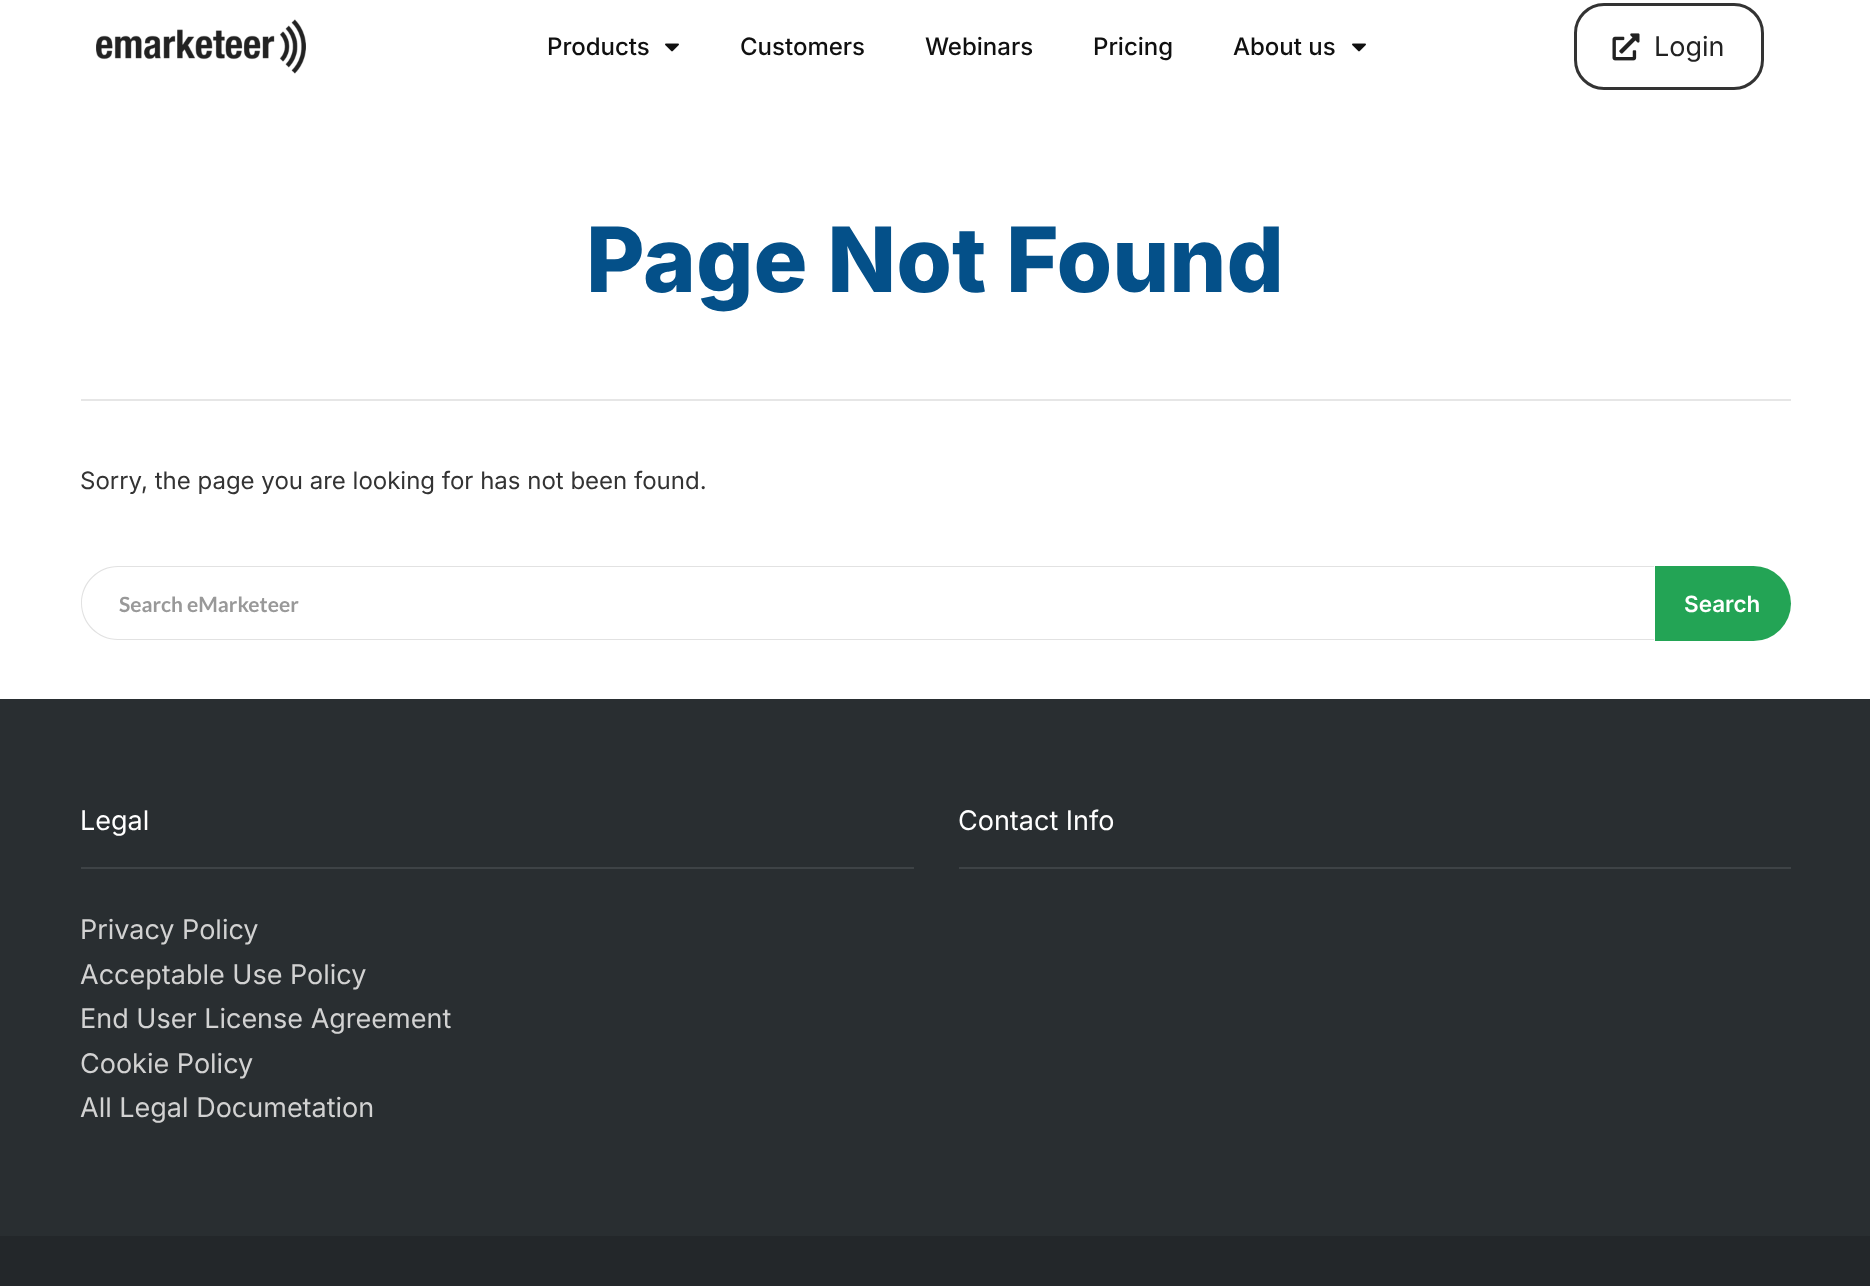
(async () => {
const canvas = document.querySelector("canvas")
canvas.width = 1870
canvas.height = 1286
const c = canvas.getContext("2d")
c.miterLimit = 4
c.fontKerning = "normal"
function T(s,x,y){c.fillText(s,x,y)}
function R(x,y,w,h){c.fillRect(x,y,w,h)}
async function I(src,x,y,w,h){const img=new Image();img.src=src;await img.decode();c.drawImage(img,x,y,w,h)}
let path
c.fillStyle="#fff"
R(0,0,1870,1286)
await I("1.png",96,19,210,55)
c.font="500 24px Inter"
c.fillStyle="#101010"
T("Products",547,55)
await I("2.png",665,43,14,9)
T("Customers",740,55)
T("Webinars",925,55)
T("Pricing",1093,55)
T("About us",1233,55)
await I("2.png",1352,43,14,9)
c.beginPath()
c.roundRect(1575.5,4.5,187,84,28.5)
c.strokeStyle="#333"
c.lineWidth=3
c.stroke()
await I("3.png",1612,33,28,28)
c.font="27px Inter"
c.fillStyle="#222"
T("Login",1654,56)
c.fillStyle="#e6e6e6"
R(81,399,1710,2)
c.font="800 90px Inter"
c.fillStyle="#045089"
T("Page Not Found",586,292)
c.font="24px Inter"
c.fillStyle="#333"
T("Sorry, the page you are looking for has not been found.",80,489)
c.fillStyle="#e2e2e2"
path = new Path2D("M118 566h1536v74h-1536c-20 0-37-16-37-37c0-21 17-37 37-37zm0 1h1536v72h-1536c-19 0-36-16-36-36c0-20 17-36 36-36z")
c.fill(path,"evenodd")
c.font="bold 21px Lato"
c.fillStyle="#999"
T("Search eMarketeer",119,612)
c.fillStyle="#23a455"
c.beginPath()
c.roundRect(1655,566,136,75,[0,37.5,37.5,0])
c.fill()
c.font="600 22.5px Inter"
c.fillStyle="#fff"
T("Search",1684,612)
c.fillStyle="#292e31"
R(0,699,1870,537)
c.fillStyle="#3e4346"
R(81,867,833,2)
c.font="27px Inter"
c.fillStyle="#fff"
T("Legal",80,830)
c.fillStyle="#d2d2d2"
T("Privacy Policy",80,939)
T("Acceptable Use Policy",80,984)
T("End User License Agreement",80,1028)
T("Cookie Policy",80,1073)
T("All Legal Documetation",80,1117)
c.fillStyle="#3e4346"
R(959,867,832,2)
c.fillStyle="#fff"
T("Contact Info",958,830)
c.fillStyle="#23272a"
R(0,1236,1870,50)
})()
